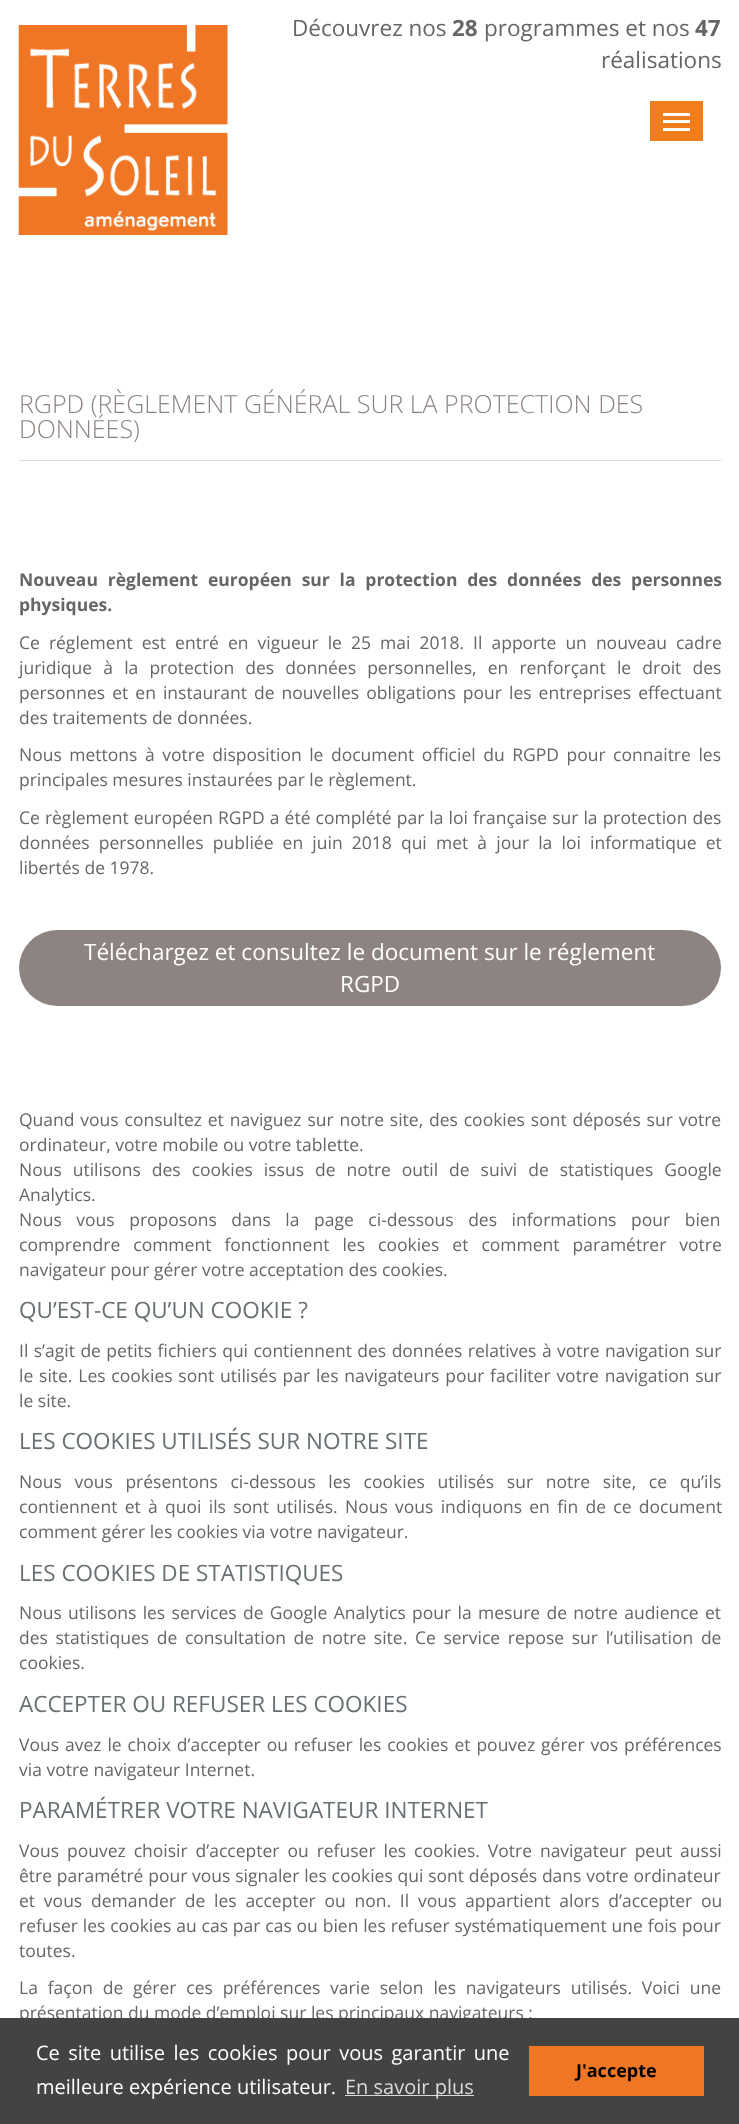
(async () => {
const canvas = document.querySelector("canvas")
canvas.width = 739
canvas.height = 2124
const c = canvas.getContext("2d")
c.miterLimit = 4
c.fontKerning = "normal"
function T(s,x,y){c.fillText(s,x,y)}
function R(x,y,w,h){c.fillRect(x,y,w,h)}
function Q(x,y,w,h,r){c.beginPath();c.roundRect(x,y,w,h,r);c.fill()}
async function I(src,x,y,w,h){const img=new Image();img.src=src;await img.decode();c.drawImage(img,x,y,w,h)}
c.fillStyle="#fff"
R(0,0,739,2124)
await I("1.png",18,25,210,210)
c.font="22.5px Open Sans"
c.fillStyle="#666"
T("Découvrez nos",292,36)
c.font="bold 22.5px Open Sans"
T("28",452,36)
c.font="22.5px Open Sans"
T("programmes et nos",484,36)
c.font="bold 22.5px Open Sans"
T("47",695,36)
c.font="22.5px Open Sans"
T("réalisations",601,68)
c.fillStyle="#f07e1c"
R(650,101,53,40)
c.fillStyle="#fff"
R(663,113,27,3)
R(663,120,27,3)
R(663,128,27,3)
c.fillStyle="#ddd"
R(19,460,702,1)
c.font="300 25px Open Sans"
c.fillStyle="#8d8381"
T("RGPD (RÈGLEMENT GÉNÉRAL SUR LA PROTECTION DES",19,413)
T("DONNÉES)",19,438)
c.wordSpacing="5.25px"
c.font="bold 17.5px Open Sans"
c.fillStyle="#666"
T("Nouveau règlement européen sur la protection des données des personnes",19,586)
c.wordSpacing="0px"
T("physiques.",19,611)
c.wordSpacing="4.5px"
c.font="17.5px Open Sans"
T("Ce réglement est entré en vigueur le 25 mai 2018. Il apporte un nouveau cadre",19,649)
c.wordSpacing="6.6px"
T("juridique à la protection des données personnelles, en renforçant le droit des",19,674)
c.wordSpacing="2.5px"
T("personnes et en instaurant de nouvelles obligations pour les entreprises effectuant",19,699)
c.wordSpacing="0px"
T("des traitements de données.",19,724)
c.wordSpacing="3px"
T("Nous mettons à votre disposition le document officiel du RGPD pour connaitre les",19,761)
c.wordSpacing="0px"
T("principales mesures instaurées par le règlement.",19,786)
c.wordSpacing="0.5px"
T("Ce règlement européen RGPD a été complété par la loi française sur la protection des",19,824)
c.wordSpacing="4.6px"
T("données personnelles publiée en juin 2018 qui met à jour la loi informatique et",19,849)
c.wordSpacing="0px"
T("libertés de 1978.",19,874)
c.fillStyle="#8d8381"
Q(19,930,702,76,38)
c.font="22.5px Open Sans"
c.fillStyle="#fff"
T("Téléchargez et consultez le document sur le réglement",84,960)
T("RGPD",340,992)
c.wordSpacing="1.3px"
c.font="17.5px Open Sans"
c.fillStyle="#666"
T("Quand vous consultez et naviguez sur notre site, des cookies sont déposés sur votre",19,1126)
c.wordSpacing="0px"
T("ordinateur, votre mobile ou votre tablette.",19,1151)
c.wordSpacing="6.4px"
T("Nous utilisons des cookies issus de notre outil de suivi de statistiques Google",19,1176)
c.wordSpacing="0px"
T("Analytics.",19,1201)
c.wordSpacing="10px"
T("Nous vous proposons dans la page ci-dessous des informations pour bien",19,1226)
c.wordSpacing="8.5px"
T("comprendre comment fonctionnent les cookies et comment paramétrer votre",19,1251)
c.wordSpacing="0px"
T("navigateur pour gérer votre acceptation des cookies.",19,1276)
c.font="22.5px Open Sans"
c.fillStyle="#687074"
T("QU’EST-CE QU’UN COOKIE ?",19,1318)
c.wordSpacing="0.9px"
c.font="17.5px Open Sans"
c.fillStyle="#666"
T("Il s’agit de petits fichiers qui contiennent des données relatives à votre navigation sur",19,1357)
c.wordSpacing="1.25px"
T("le site. Les cookies sont utilisés par les navigateurs pour faciliter votre navigation sur",19,1382)
c.wordSpacing="0px"
T("le site.",19,1407)
c.font="22.5px Open Sans"
c.fillStyle="#687074"
T("LES COOKIES UTILISÉS SUR NOTRE SITE",19,1449)
c.wordSpacing="8.1px"
c.font="17.5px Open Sans"
c.fillStyle="#666"
T("Nous vous présentons ci-dessous les cookies utilisés sur notre site, ce qu’ils",19,1488)
c.wordSpacing="2.75px"
T("contiennent et à quoi ils sont utilisés. Nous vous indiquons en fin de ce document",19,1513)
c.wordSpacing="0px"
T("comment gérer les cookies via votre navigateur.",19,1538)
c.font="22.5px Open Sans"
c.fillStyle="#687074"
T("LES COOKIES DE STATISTIQUES",19,1581)
c.wordSpacing="1.8px"
c.font="17.5px Open Sans"
c.fillStyle="#666"
T("Nous utilisons les services de Google Analytics pour la mesure de notre audience et",19,1619)
c.wordSpacing="3.1px"
T("des statistiques de consultation de notre site. Ce service repose sur l’utilisation de",19,1644)
c.wordSpacing="0px"
T("cookies.",19,1669)
c.font="22.5px Open Sans"
c.fillStyle="#687074"
T("ACCEPTER OU REFUSER LES COOKIES",19,1712)
c.wordSpacing="1.4px"
c.font="17.5px Open Sans"
c.fillStyle="#666"
T("Vous avez le choix d’accepter ou refuser les cookies et pouvez gérer vos préférences",19,1751)
c.wordSpacing="0px"
T("via votre navigateur Internet.",19,1776)
c.font="22.5px Open Sans"
c.fillStyle="#687074"
T("PARAMÉTRER VOTRE NAVIGATEUR INTERNET",19,1818)
c.wordSpacing="3.4px"
c.font="17.5px Open Sans"
c.fillStyle="#666"
T("Vous pouvez choisir d’accepter ou refuser les cookies. Votre navigateur peut aussi",19,1857)
c.wordSpacing="0.25px"
T("être paramétré pour vous signaler les cookies qui sont déposés dans votre ordinateur",19,1882)
c.wordSpacing="4.25px"
T("et vous demander de les accepter ou non. Il vous appartient alors d’accepter ou",19,1907)
c.wordSpacing="0.3px"
T("refuser les cookies au cas par cas ou bien les refuser systématiquement une fois pour",19,1932)
c.wordSpacing="0px"
T("toutes.",19,1957)
c.wordSpacing="5.25px"
T("La façon de gérer ces préférences varie selon les navigateurs utilisés. Voici une",19,1994)
c.wordSpacing="0px"
T("présentation du mode d’emploi sur les principaux navigateurs :",19,2019)
c.fillStyle="#414441"
R(0,2018,739,106)
c.wordSpacing="3.25px"
c.font="20px Open Sans"
c.fillStyle="#fff"
T("Ce site utilise les cookies pour vous garantir une",36,2060)
c.wordSpacing="0px"
T("meilleure expérience utilisateur.",36,2094)
c.fillStyle="#d9dad9"
R(345,2095,129,1)
T("En savoir plus",345,2094)
c.fillStyle="#ef7624"
R(529,2046,175,50)
c.font="bold 18px Open Sans"
c.fillStyle="#000"
T("J'accepte",576,2077)
})()
